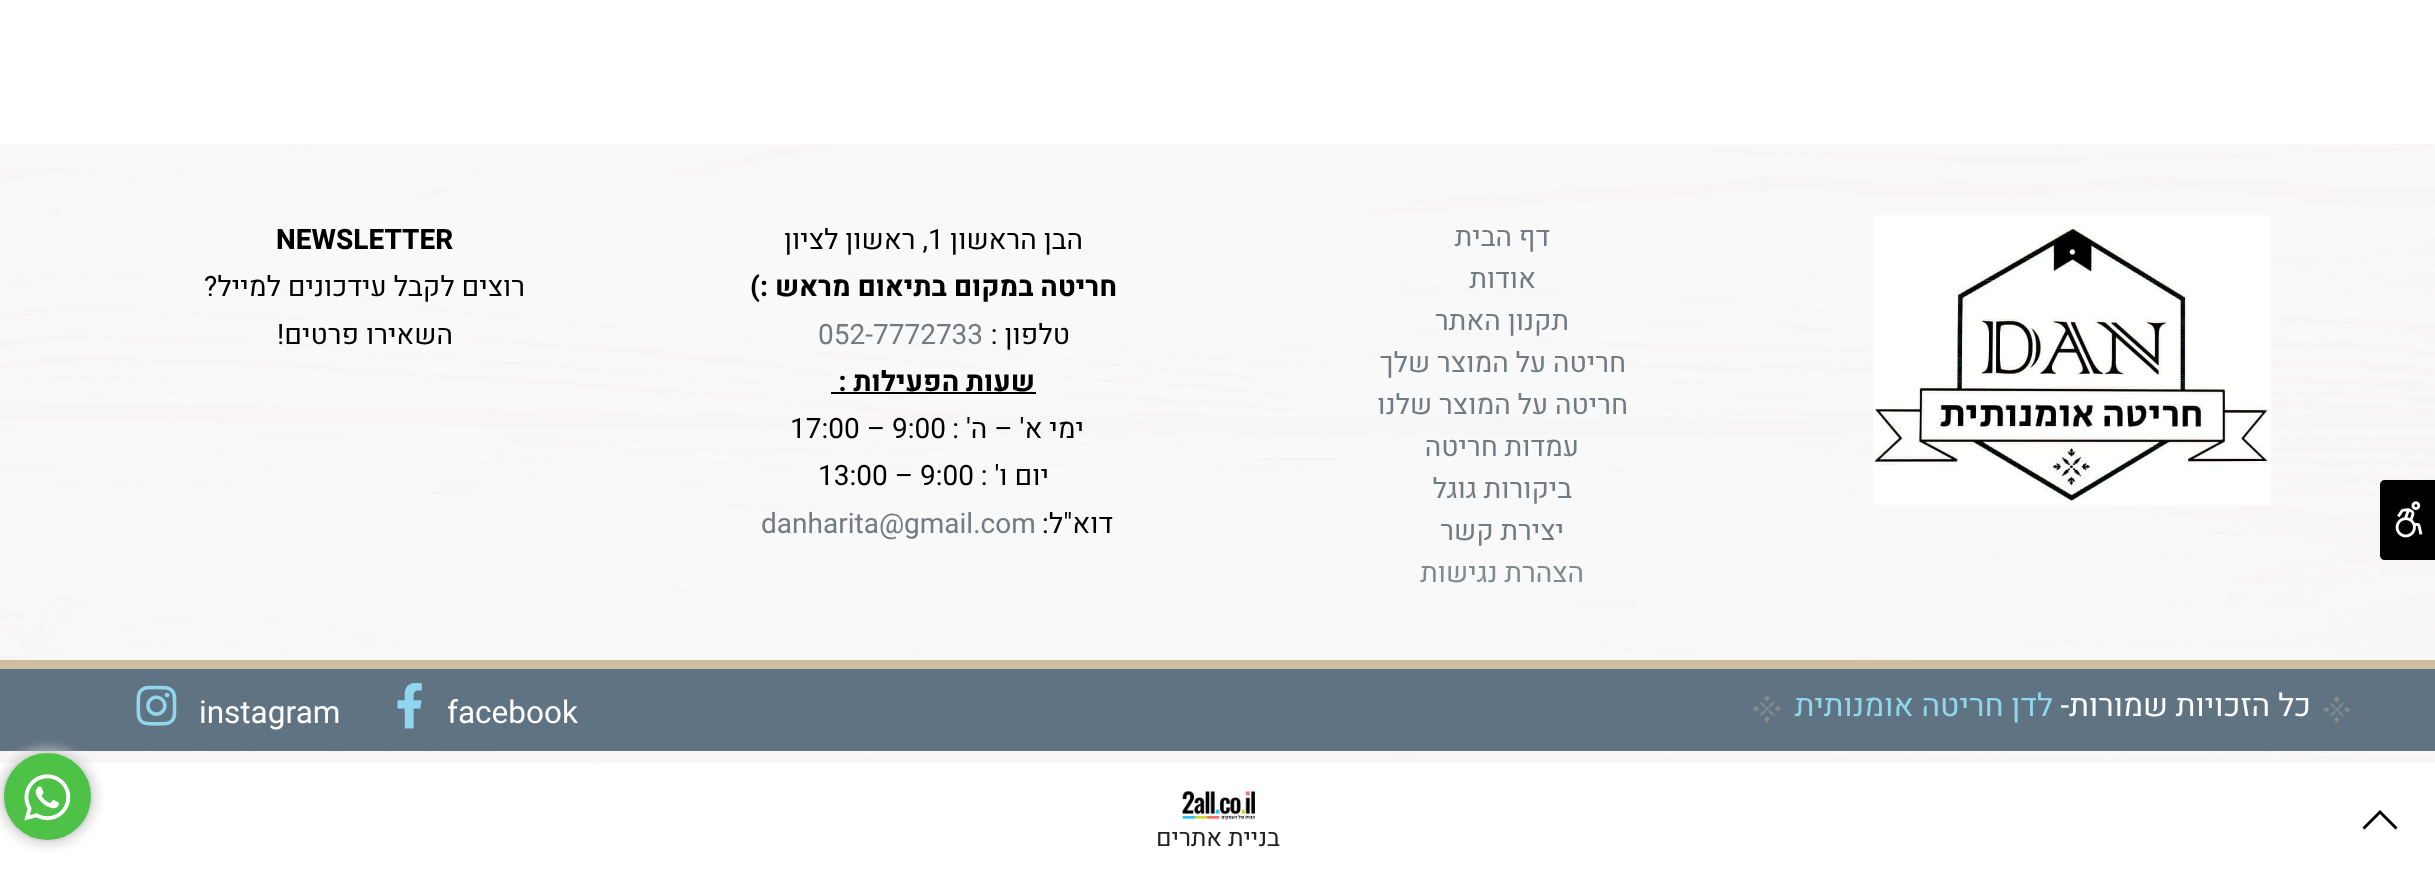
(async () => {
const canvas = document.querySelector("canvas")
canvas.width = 2435
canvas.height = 874
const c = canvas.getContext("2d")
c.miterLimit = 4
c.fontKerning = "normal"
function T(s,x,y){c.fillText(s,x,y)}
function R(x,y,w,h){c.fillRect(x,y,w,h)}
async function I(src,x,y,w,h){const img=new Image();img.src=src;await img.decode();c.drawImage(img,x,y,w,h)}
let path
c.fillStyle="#fff"
R(0,0,2435,874)
await I("2.png",0,144,2435,619)
c.fillStyle="#000"
path = new Path2D("M2385 480h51v80h-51c-3 0-5-2-5-5v-70c0-3 2-5 5-5z")
c.fill(path)
await I("1.png",2395,501,28,37)
await I("3.png",1873,215,398,290)
c.direction="rtl"
c.font="28px Heebo"
c.fillStyle="#717b82"
T("דף הבית",1550,246)
T("אודות",1536,288)
T("תקנון האתר",1569,330)
T("חריטה על המוצר שלך",1626,372)
T("חריטה על המוצר שלנו",1628,414)
T("עמדות חריטה",1579,456)
T("ביקורות גוגל",1572,498)
T("יצירת קשר",1564,540)
c.fillStyle="#7e8c8d"
T("הצהרת נגישות",1584,582)
c.fillStyle="#000"
T("הבן הראשון",1083,249)
c.direction="ltr"
T("1",928,249)
c.direction="rtl"
T(", ראשון לציון",928,249)
c.font="bold 28px Heebo"
T("חריטה במקום בתיאום מראש :)",1117,296)
c.font="28px Heebo"
T("טלפון :",1070,344)
c.direction="ltr"
c.fillStyle="#717b82"
T("052-7772733",818,344)
c.direction="rtl"
c.font="bold 28px Heebo"
c.fillStyle="#000"
T("שעות הפעילות :",1035,391)
R(831,392,205,2)
c.font="28px Heebo"
T("ימי א' – ה' :",1084,438)
c.direction="ltr"
T("17:00 – 9:00",790,438)
c.direction="rtl"
T("יום ו' :",1049,485)
c.direction="ltr"
T("13:00 – 9:00",818,485)
c.direction="rtl"
T("דוא\"ל:",1113,533)
c.direction="ltr"
c.fillStyle="#717b82"
T("danharita@gmail.com",761,533)
c.font="bold 28px Heebo"
c.fillStyle="#000"
T("NEWSLETTER",276,249)
c.direction="rtl"
c.font="28px Heebo"
T("רוצים לקבל עידכונים למייל?",525,296)
T("השאירו פרטים!",453,344)
c.fillStyle="#607382"
R(0,669,2435,82)
c.fillStyle="#cfbe9d"
R(0,660,2435,9)
await I("4.png",2323,696,32,28)
c.font="31.5px Heebo"
c.fillStyle="#fff"
T("כל הזכויות שמורות-",2311,716)
c.fillStyle="#90d7ee"
T("לדן חריטה אומנותית",2053,716)
await I("5.png",1752,695,34,28)
c.direction="ltr"
c.fillStyle="#fff"
T("facebook",447,723)
await I("6.png",397,682,25,47)
T("instagram",199,723)
await I("7.png",136,685,41,41)
c.fillStyle="#000"
path = new Path2D("M2380 810l-17.5 17.5l2 2l15.5-15.5l15.5 15.5l2-2l-16.5-16.5z")
c.fill(path)
c.fillStyle="#cacaca8c"
c.filter="blur(4.5px)"
c.beginPath()
c.roundRect(-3,746,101,101,50.5)
c.fill()
c.filter="none"
c.fillStyle="#4dc247"
c.beginPath()
c.arc(47.5,796.5,44.5,0,7)
c.fill()
c.strokeStyle="#d8d8d8"
c.lineWidth=2
c.stroke()
await I("8.png",24,774,47,47)
await I("9.png",1182,790,73,30)
c.direction="rtl"
c.font="24.5px Heebo"
c.fillStyle="#222"
T("בניית אתרים",1280,846)
})()
